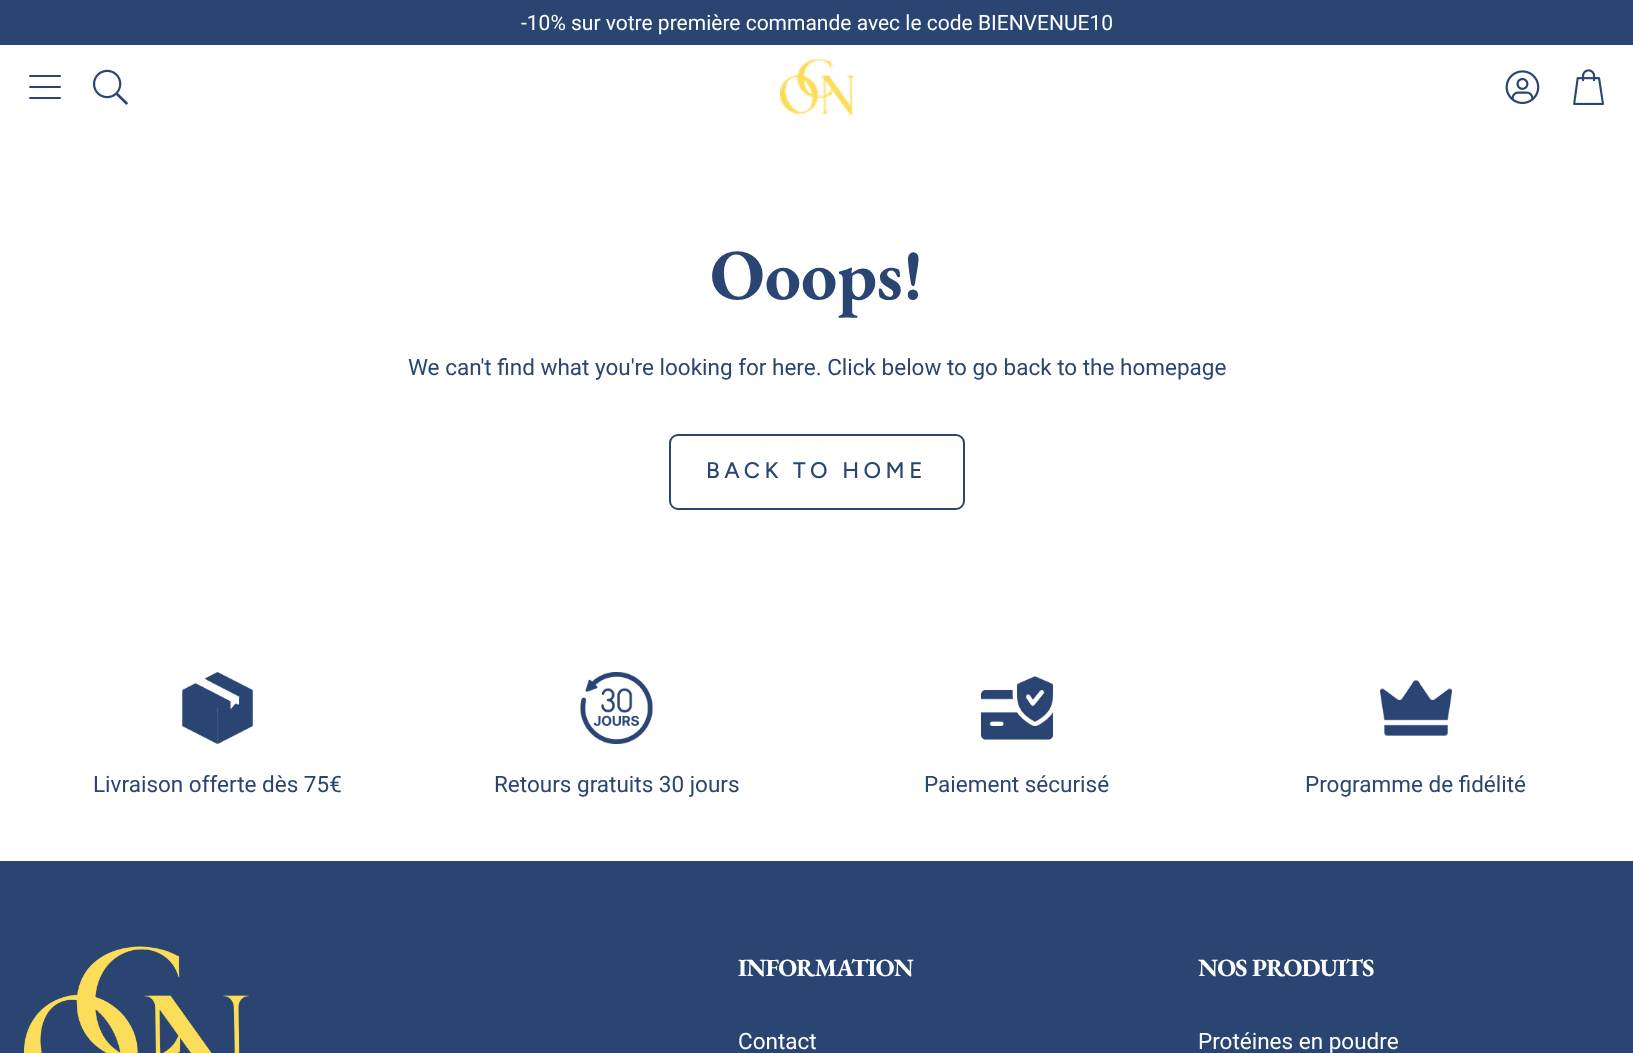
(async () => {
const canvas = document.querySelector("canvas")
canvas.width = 1633
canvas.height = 1053
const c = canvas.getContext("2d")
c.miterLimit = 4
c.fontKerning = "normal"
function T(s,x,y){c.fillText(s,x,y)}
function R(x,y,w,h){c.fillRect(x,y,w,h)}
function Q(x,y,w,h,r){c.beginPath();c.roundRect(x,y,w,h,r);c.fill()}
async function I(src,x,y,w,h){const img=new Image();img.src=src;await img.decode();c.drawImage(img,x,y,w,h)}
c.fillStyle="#fff"
R(0,0,1633,1053)
c.fillStyle="#2a4572"
R(0,0,1633,45)
c.font="21px Roboto"
c.fillStyle="#fff"
T("-10% sur votre première commande avec le code BIENVENUE10",521,30)
c.fillStyle="#2a4572"
Q(29,75,32,2,1)
Q(29,86,32,2,1)
Q(29,97,32,2,1)
await I("1.png",92,69,36,36)
await I("2.png",780,59,75,56)
await I("3.png",1505,70,35,34)
await I("4.png",1573,69,31,36)
c.font="bold 72px EB Garamond"
T("Ooops!",710,299)
c.font="22.5px Roboto"
T("We can't find what you're looking for here. Click below to go back to the homepage",408,375)
c.beginPath()
c.roundRect(670,435,294,74,8)
c.strokeStyle="#2a4572"
c.lineWidth=2
c.stroke()
c.letterSpacing="4.5px"
c.font="500 22.5px Figtree"
T("BACK TO HOME",706,478)
await I("5.png",182,672,71,72)
c.letterSpacing="0px"
c.font="22.5px Roboto"
T("Livraison offerte dès 75€",93,792)
await I("6.png",580,672,73,72)
T("Retours gratuits 30 jours",494,792)
await I("7.png",981,676,72,64)
T("Paiement sécurisé",924,792)
await I("8.png",1380,680,72,56)
T("Programme de fidélité",1305,792)
R(0,861,1633,192)
await I("9.png",24,946,225,107)
c.letterSpacing="-0.75px"
c.font="bold 24.75px EB Garamond"
c.fillStyle="#fff"
T("INFORMATION",738,976)
c.letterSpacing="0px"
c.font="22.5px Roboto"
T("Contact",738,1049)
c.letterSpacing="-0.75px"
c.font="bold 24.75px EB Garamond"
T("NOS PRODUITS",1198,976)
c.letterSpacing="0px"
c.font="22.5px Roboto"
T("Protéines en poudre",1198,1049)
})()
